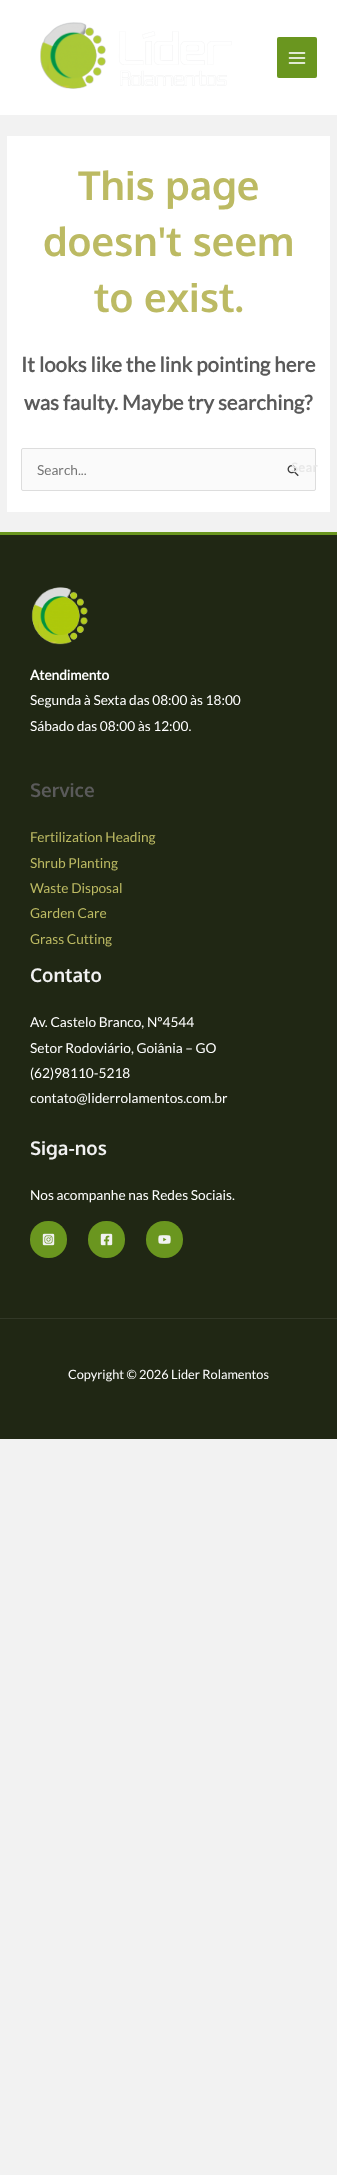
(async () => {
const canvas = document.querySelector("canvas")
canvas.width = 337
canvas.height = 2175
const c = canvas.getContext("2d")
c.miterLimit = 4
c.fontKerning = "normal"
function T(s,x,y){c.fillText(s,x,y)}
function R(x,y,w,h){c.fillRect(x,y,w,h)}
function Q(x,y,w,h,r){c.beginPath();c.roundRect(x,y,w,h,r);c.fill()}
async function I(src,x,y,w,h){const img=new Image();img.src=src;await img.decode();c.drawImage(img,x,y,w,h)}
c.fillStyle="#f2f2f2"
R(0,0,337,2175)
c.fillStyle="#fff"
R(0,0,337,115)
await I("1.png",40,22,192,67)
c.fillStyle="#6a961f"
Q(277,37,40,41,2)
await I("2.png",288,52,18,12)
c.fillStyle="#fff"
R(7,136,323,376)
c.font="bold 40px Oxygen"
c.fillStyle="#bcba63"
T("This page",78,200)
T("doesn't seem",43,256)
T("to exist.",94,312)
c.font="bold 20.5px Lato"
c.fillStyle="#5a5a5a"
T("It looks like the link pointing here",21,372)
T("was faulty. Maybe try searching?",24,410)
c.fillStyle="#fafafa"
c.beginPath()
c.roundRect(21.5,448.5,294,42,1.5)
c.fill()
c.strokeStyle="#ddd"
c.stroke()
c.font="13.7px Lato"
c.fillStyle="#757575"
T("Search...",37,475)
await I("3.png",287,465,12,12)
c.letterSpacing="0.5px"
c.font="bold 12.75px Lato"
c.fillStyle="#e8e8e8"
T("Sear",291,472)
c.fillStyle="#202714"
R(0,535,337,904)
c.fillStyle="#6a961f"
R(0,532,337,3)
await I("4.png",31,587,57,58)
c.letterSpacing="0px"
c.font="bold 13.7px Lato"
c.fillStyle="#fff"
T("Atendimento",30,680)
c.font="13.7px Lato"
T("Segunda à Sexta das 08:00 às 18:00",30,705)
T("Sábado das 08:00 às 12:00.",30,731)
c.font="bold 19px Oxygen"
c.fillStyle="#5a5a5a"
T("Service",30,797)
c.font="13.7px Lato"
c.fillStyle="#bcba63"
T("Fertilization Heading",30,842)
T("Shrub Planting",30,868)
T("Waste Disposal",30,893)
T("Garden Care",30,918)
T("Grass Cutting",30,944)
c.font="bold 19px Oxygen"
c.fillStyle="#f2f2f2"
T("Contato",30,982)
c.font="13.7px Lato"
c.fillStyle="#fff"
T("Av. Castelo Branco, Nº4544",30,1027)
T("Setor Rodoviário, Goiânia – GO",30,1053)
T("(62)98110-5218",30,1078)
T("contato@liderrolamentos.com.br",30,1103)
c.font="bold 19px Oxygen"
c.fillStyle="#f2f2f2"
T("Siga-nos",30,1155)
c.font="13.7px Lato"
c.fillStyle="#fff"
T("Nos acompanhe nas Redes Sociais.",30,1200)
c.fillStyle="#6a961f"
Q(30,1221,37,37,18)
await I("5.png",42,1233,13,13)
Q(88,1221,37,37,18)
await I("6.png",100,1233,13,13)
Q(146,1221,37,37,18)
await I("7.png",158,1235,13,9)
c.fillStyle="#323827"
R(0,1318,337,1)
c.font="12.75px Lato"
c.fillStyle="#fff"
T("Copyright © 2026 Lider Rolamentos",68,1379)
})()
